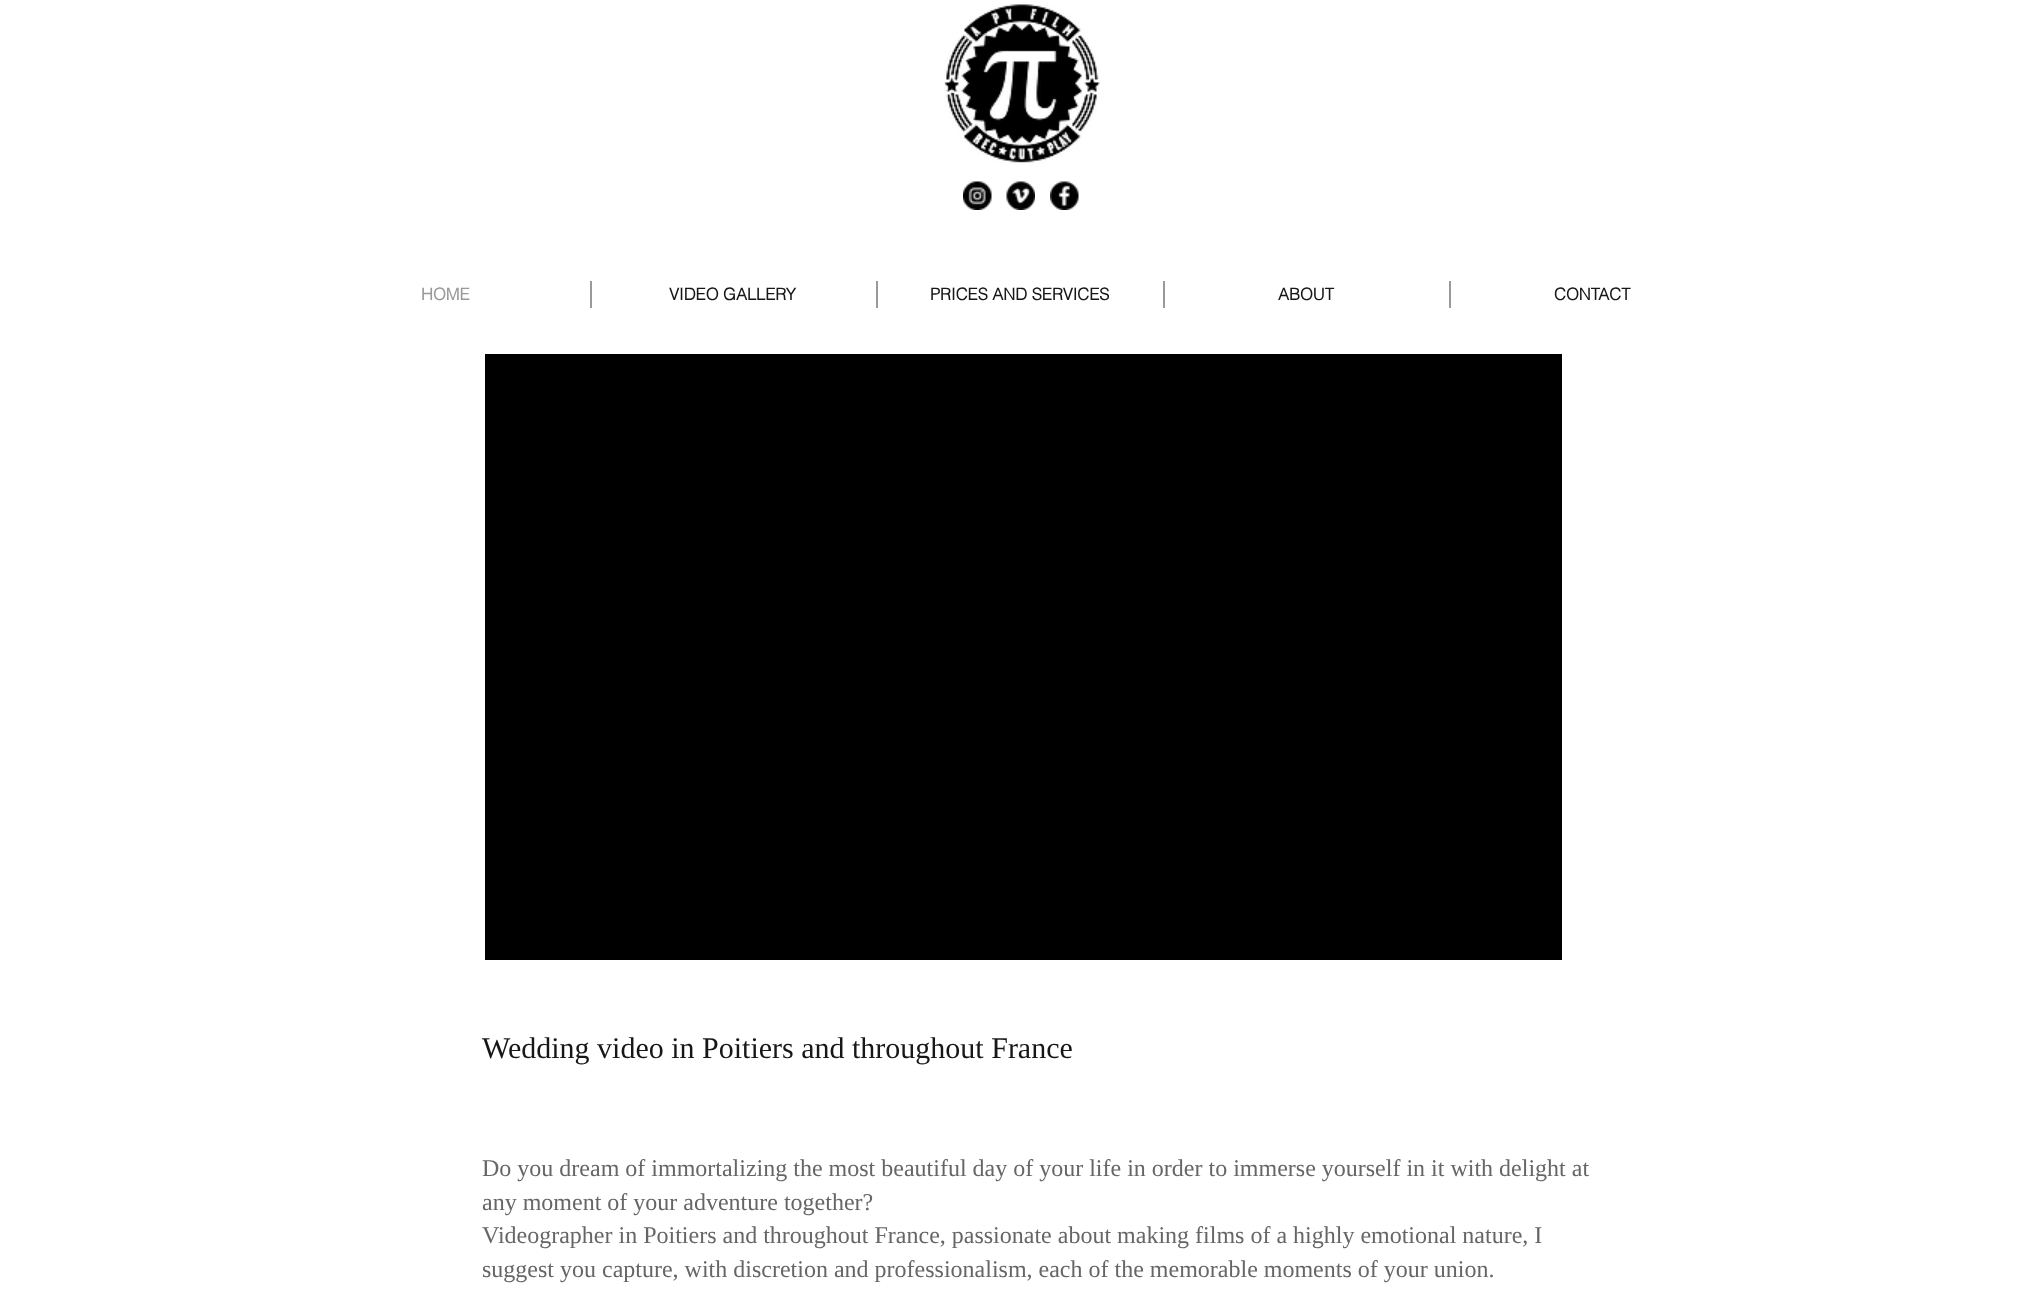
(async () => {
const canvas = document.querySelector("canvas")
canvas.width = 2044
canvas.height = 1293
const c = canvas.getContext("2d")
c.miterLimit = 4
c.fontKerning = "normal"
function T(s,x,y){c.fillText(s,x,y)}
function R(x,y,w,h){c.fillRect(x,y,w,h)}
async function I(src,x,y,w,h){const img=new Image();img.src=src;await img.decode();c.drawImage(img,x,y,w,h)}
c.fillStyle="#fff"
R(0,0,2044,1293)
await I("1.png",944,4,156,159)
await I("2.png",963,181,29,29)
await I("3.png",1006,181,29,29)
await I("4.png",1050,181,29,29)
c.font="bold 16.5px helvetica"
c.fillStyle="#999"
T("HOME",421,300)
R(590,281,2,27)
c.fillStyle="#181717"
T("VIDEO GALLERY",669,300)
c.fillStyle="#999"
R(876,281,2,27)
c.fillStyle="#181717"
T("PRICES AND SERVICES",930,300)
c.fillStyle="#999"
R(1163,281,2,27)
c.fillStyle="#181717"
T("ABOUT",1278,300)
c.fillStyle="#999"
R(1449,281,2,27)
c.fillStyle="#181717"
T("CONTACT",1554,300)
c.fillStyle="#000"
R(485,354,1077,606)
c.font="30px Liberation Serif"
c.fillStyle="#181717"
T("Wedding video in Poitiers and throughout France",482,1058)
c.font="24px Liberation Serif"
c.fillStyle="#666"
T("Do you dream of immortalizing the most beautiful day of your life in order to immerse yourself in it with delight at",482,1176)
T("any moment of your adventure together?",482,1210)
T("Videographer in Poitiers and throughout France, passionate about making films of a highly emotional nature, I",482,1243)
T("suggest you capture, with discretion and professionalism, each of the memorable moments of your union.",482,1277)
})()
